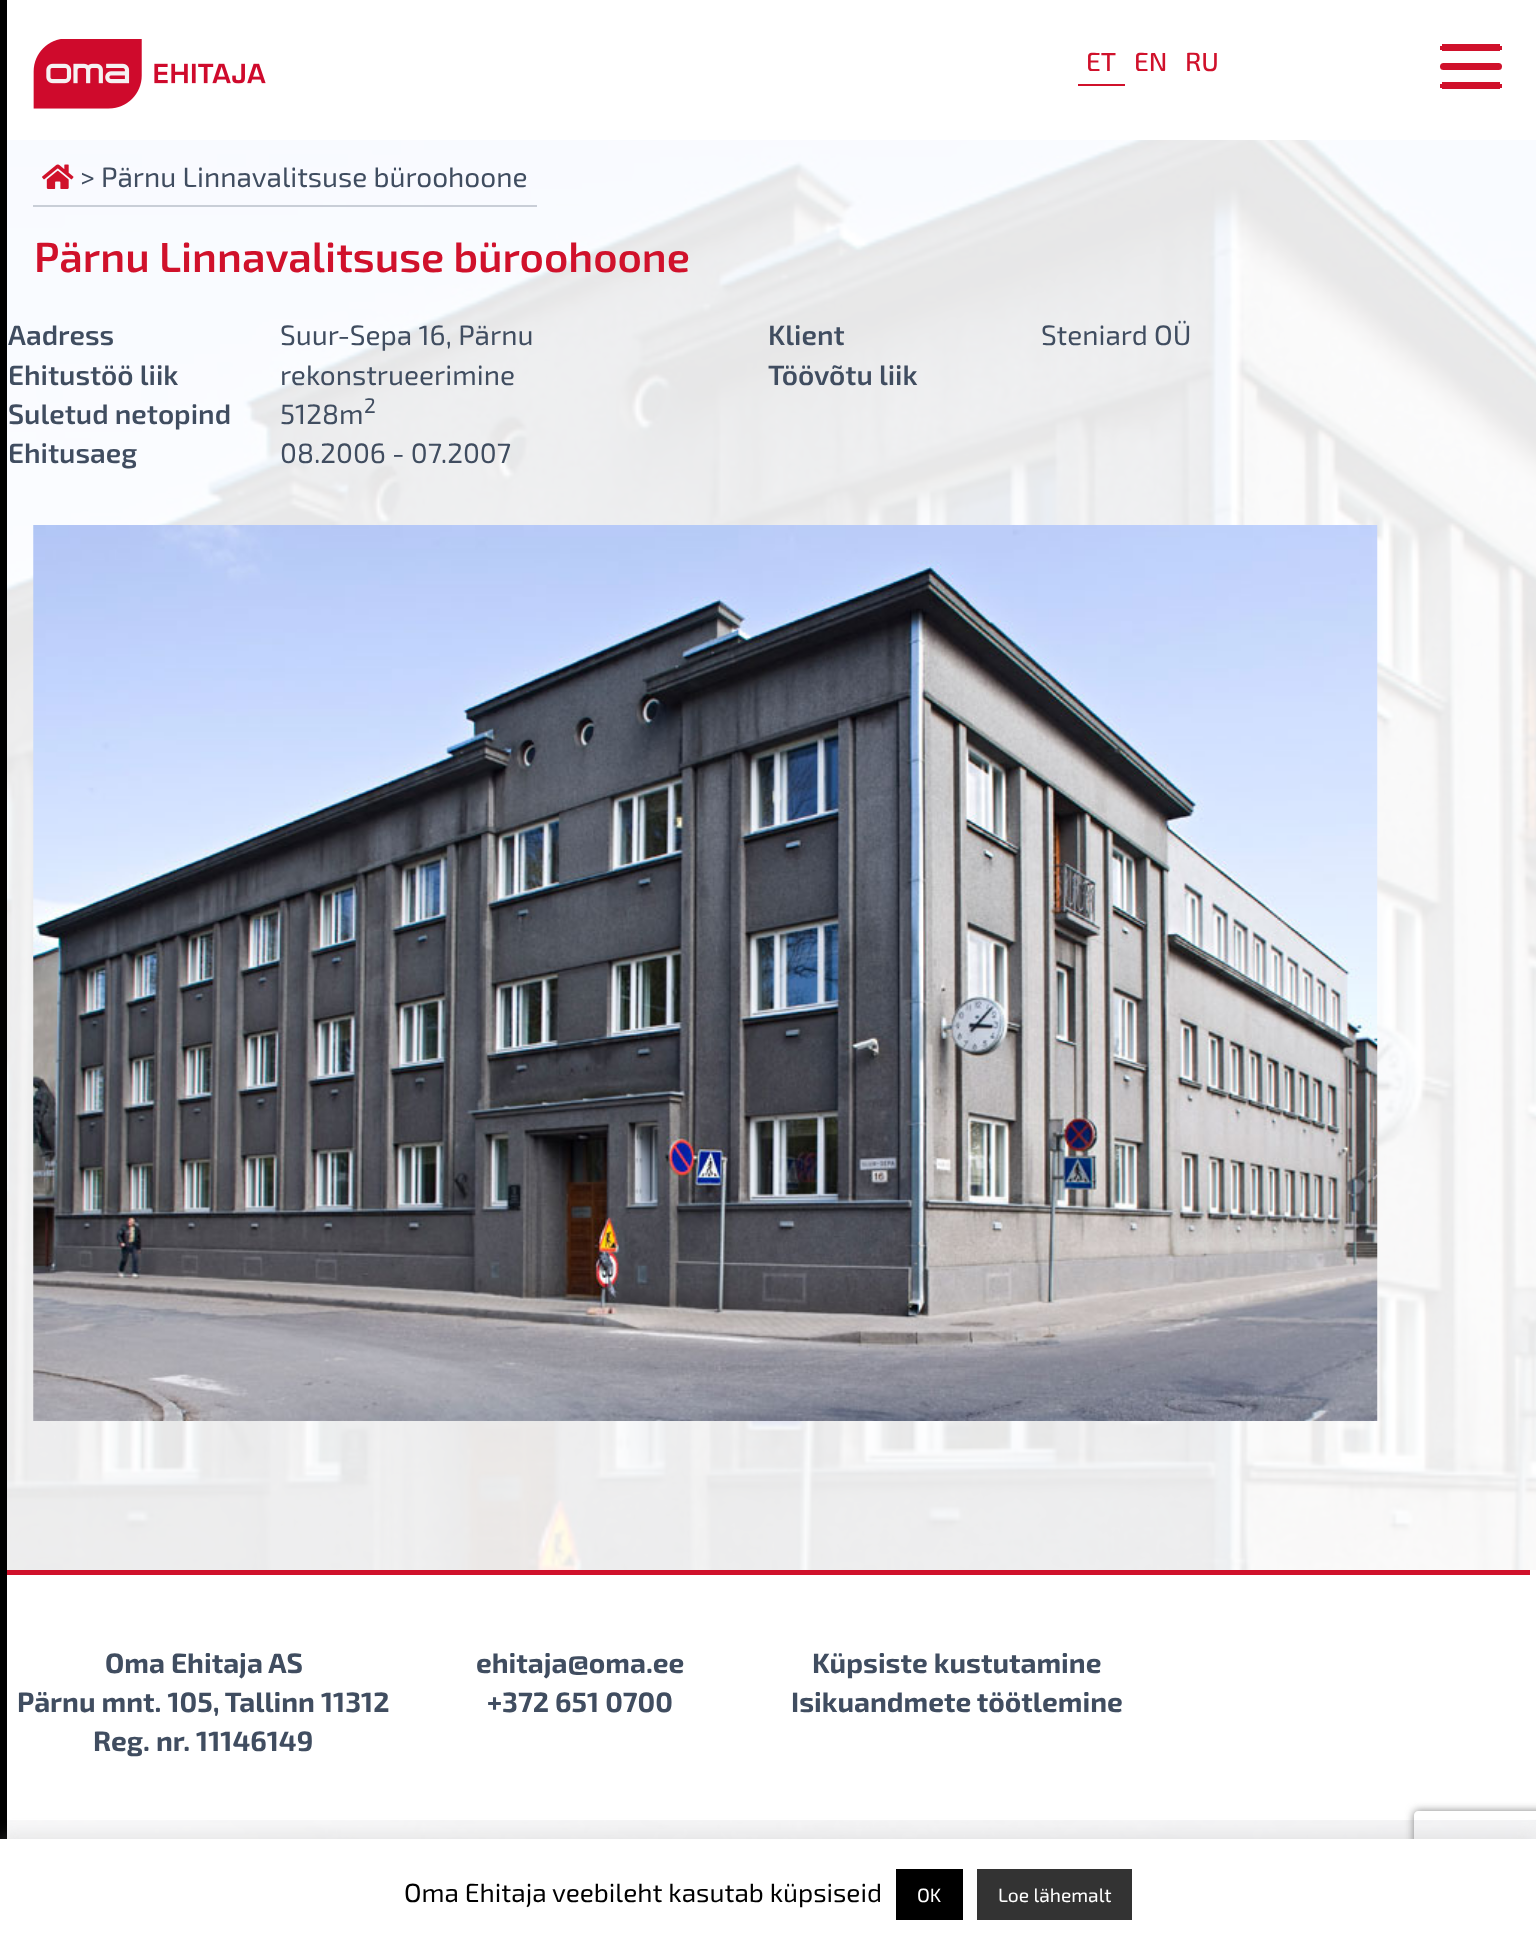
(async () => {
const canvas = document.querySelector("canvas")
canvas.width = 1536
canvas.height = 1940
const c = canvas.getContext("2d")
c.miterLimit = 4
c.fontKerning = "normal"
function T(s,x,y){c.fillText(s,x,y)}
function R(x,y,w,h){c.fillRect(x,y,w,h)}
function Q(x,y,w,h,r){c.beginPath();c.roundRect(x,y,w,h,r);c.fill()}
async function I(src,x,y,w,h){const img=new Image();img.src=src;await img.decode();c.drawImage(img,x,y,w,h)}
let path
c.fillStyle="#fff"
R(0,0,1536,1940)
await I("1.png",7,140,1529,1699)
c.fillStyle="#000"
R(0,0,7,1839)
await I("2.png",33,39,233,70)
c.fillStyle="#d0112b"
R(1078,84,47,2)
c.font="500 26.25px 'Exo 2'"
T("ET",1086,71)
T("EN",1134,71)
T("RU",1185,71)
R(1442,44,58,7)
R(1495,46,7,4)
R(1440,46,7,4)
Q(1440,63,62,7,3.5)
R(1495,84,7,4)
R(1442,82,58,7)
R(1440,84,7,4)
c.fillStyle="#c9ced7"
R(33,205,504,2)
await I("3.png",42,164,32,25)
c.font="28px 'Exo 2'"
c.fillStyle="#404d60"
T("> Pärnu Linnavalitsuse büroohoone",80,187)
c.font="600 42px 'Exo 2'"
c.fillStyle="#d0112b"
T("Pärnu Linnavalitsuse büroohoone",34,272)
c.font="600 28px 'Exo 2'"
c.fillStyle="#404d60"
T("Aadress",8,345)
c.font="28px 'Exo 2'"
T("Suur-Sepa 16, Pärnu",280,345)
c.font="600 28px 'Exo 2'"
T("Ehitustöö liik",8,385)
c.font="28px 'Exo 2'"
T("rekonstrueerimine",280,385)
c.font="600 28px 'Exo 2'"
T("Suletud netopind",8,424)
c.font="28px 'Exo 2'"
T("5128m",280,424)
c.font="21px 'Exo 2'"
T("2",364,413)
c.font="600 28px 'Exo 2'"
T("Ehitusaeg",8,463)
c.font="28px 'Exo 2'"
T("08.2006 - 07.2007",280,463)
c.font="600 28px 'Exo 2'"
T("Klient",768,345)
c.font="28px 'Exo 2'"
T("Steniard OÜ",1041,345)
c.font="600 28px 'Exo 2'"
T("Töövõtu liik",768,385)
await I("4.png",33,525,1345,896)
c.fillStyle="#fff"
R(7,1570,1529,250)
c.fillStyle="#d0112b"
R(7,1570,1523,5)
c.font="bold 28px 'Exo 2'"
c.fillStyle="#404d60"
T("Oma Ehitaja AS",105,1673)
T("Pärnu mnt. 105, Tallinn 11312",17,1712)
T("Reg. nr. 11146149",93,1751)
T("ehitaja@oma.ee",476,1673)
T("+372 651 0700",487,1712)
T("Küpsiste kustutamine",812,1673)
T("Isikuandmete töötlemine",791,1712)
c.fillStyle="#acabab4d"
c.filter="blur(9px)"
c.beginPath()
c.rect(0,1838,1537,101)
c.fill()
c.filter="none"
c.save()
path = new Path2D("M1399 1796h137v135h-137zm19 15h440c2 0 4 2 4 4v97c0 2-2 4-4 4h-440c-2 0-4-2-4-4v-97c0-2 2-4 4-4z")
c.clip(path,"evenodd")
c.fillStyle="#808080"
c.filter="blur(4.5px)"
c.beginPath()
c.roundRect(1414,1811,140,105,4)
c.fill()
c.filter="none"
c.restore()
c.fillStyle="#fff"
R(0,1839,1536,101)
c.font="26.25px 'Exo 2'"
c.fillStyle="#000"
T("Oma Ehitaja veebileht kasutab küpsiseid",404,1902)
R(896,1869,67,51)
c.font="19.25px 'Exo 2'"
c.fillStyle="#fff"
T("OK",917,1902)
c.fillStyle="#333"
R(977,1869,155,51)
c.fillStyle="#fff"
T("Loe lähemalt",998,1902)
})()
